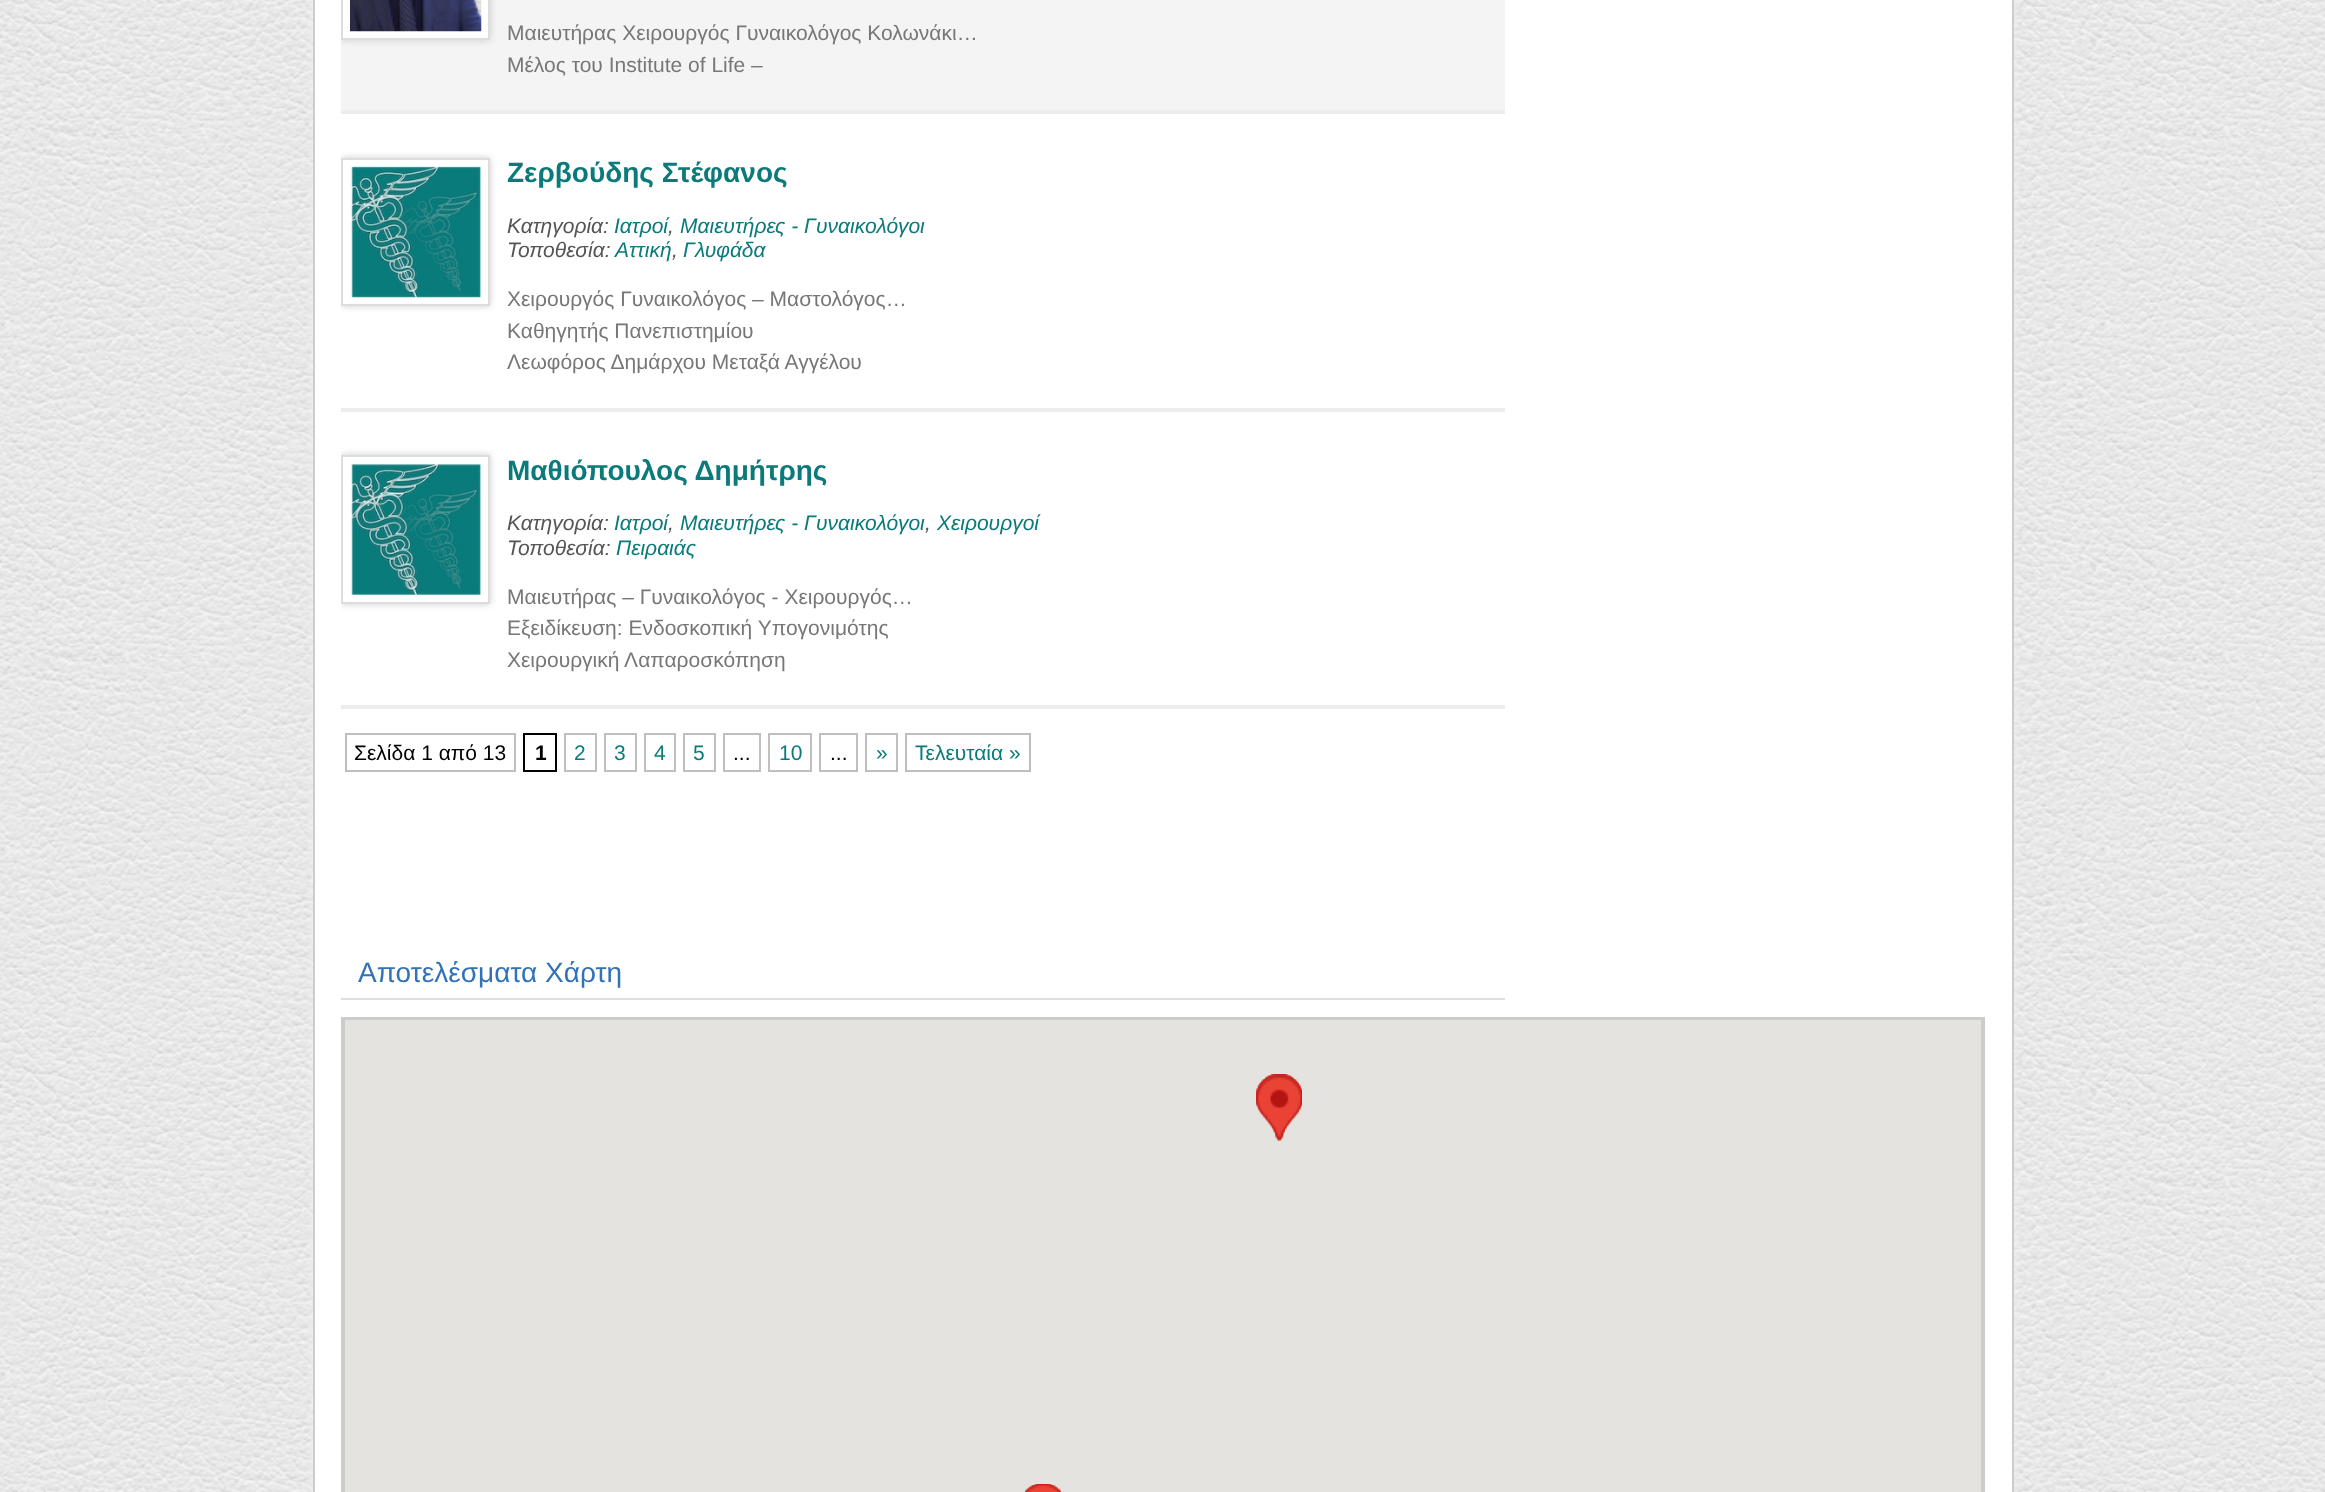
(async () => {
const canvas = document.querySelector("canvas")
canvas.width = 2325
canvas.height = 1492
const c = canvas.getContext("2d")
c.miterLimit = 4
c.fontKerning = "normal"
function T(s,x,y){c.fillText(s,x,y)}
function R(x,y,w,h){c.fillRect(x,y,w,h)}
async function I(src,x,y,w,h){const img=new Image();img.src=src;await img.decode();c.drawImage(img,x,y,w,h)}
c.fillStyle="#fff"
R(0,0,2325,1492)
await I("1.png",0,0,2325,1492)
c.fillStyle="#eee"
c.filter="blur(4.5px)"
c.beginPath()
c.roundRect(313,-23,1701,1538,9)
c.fill()
c.filter="none"
c.fillStyle="#fff"
c.beginPath()
c.rect(314,-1,1699,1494)
c.fill()
c.strokeStyle="#ccc"
c.lineWidth=2
c.stroke()
c.fillStyle="#f4f4f4"
R(341,0,1164,110)
c.fillStyle="#ececec"
R(341,110,1164,4)
c.save()
c.beginPath()
c.rect(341,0,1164,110)
c.clip()
c.fillStyle="#ccc"
c.filter="blur(3.5px)"
c.beginPath()
c.rect(341,-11,149,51)
c.fill()
c.filter="none"
c.restore()
c.fillStyle="#fff"
c.beginPath()
c.rect(342,-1,147,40)
c.fill()
c.strokeStyle="#ddd"
c.stroke()
await I("2.png",350,0,132,32)
c.font="21px Liberation Sans"
c.fillStyle="#777"
T("Μαιευτήρας Χειρουργός Γυναικολόγος Κολωνάκι…",507,40)
T("Μέλος του Institute of Life –",507,72)
c.fillStyle="#ececec"
R(341,408,1164,4)
c.save()
c.beginPath()
c.rect(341,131,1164,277)
c.clip()
c.fillStyle="#ccc"
c.filter="blur(3.5px)"
c.beginPath()
c.rect(341,158,149,148)
c.fill()
c.filter="none"
c.restore()
c.fillStyle="#fff"
c.beginPath()
c.rect(342,159,147,146)
c.fill()
c.stroke()
await I("3.png",350,166,132,132)
c.font="bold 28px Liberation Sans"
c.fillStyle="#0a7a7b"
T("Ζερβούδης Στέφανος",507,182)
c.font="italic 21px Liberation Sans"
c.fillStyle="#555"
T("Κατηγορία:",507,233)
c.fillStyle="#0a7a7b"
T("Ιατροί",614,233)
T("Μαιευτήρες - Γυναικολόγοι",680,233)
c.fillStyle="#555"
T(",",668,233)
T("Τοποθεσία:",507,257)
c.fillStyle="#0a7a7b"
T("Αττική",615,257)
c.fillStyle="#555"
T(",",672,257)
c.fillStyle="#0a7a7b"
T("Γλυφάδα",683,257)
c.font="21px Liberation Sans"
c.fillStyle="#777"
T("Χειρουργός Γυναικολόγος – Μαστολόγος…",507,306)
T("Καθηγητής Πανεπιστημίου",507,338)
T("Λεωφόρος Δημάρχου Μεταξά Αγγέλου",507,369)
c.fillStyle="#ececec"
R(341,705,1164,4)
c.save()
c.beginPath()
c.rect(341,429,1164,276)
c.clip()
c.fillStyle="#ccc"
c.filter="blur(3.5px)"
c.beginPath()
c.rect(341,455,149,149)
c.fill()
c.filter="none"
c.restore()
c.fillStyle="#fff"
c.beginPath()
c.rect(342,456,147,147)
c.fill()
c.stroke()
await I("4.png",350,463,132,132)
c.font="bold 28px Liberation Sans"
c.fillStyle="#0a7a7b"
T("Μαθιόπουλος Δημήτρης",507,480)
c.font="italic 21px Liberation Sans"
c.fillStyle="#555"
T("Κατηγορία:",507,530)
c.fillStyle="#0a7a7b"
T("Ιατροί",614,530)
T("Μαιευτήρες - Γυναικολόγοι",680,530)
T("Χειρουργοί",937,530)
c.fillStyle="#555"
T(",",668,530)
T(",",925,530)
T("Τοποθεσία:",507,555)
c.fillStyle="#0a7a7b"
T("Πειραιάς",616,555)
c.font="21px Liberation Sans"
c.fillStyle="#777"
T("Μαιευτήρας – Γυναικολόγος - Χειρουργός…",507,604)
T("Εξειδίκευση: Ενδοσκοπική Υπογονιμότης",507,635)
T("Χειρουργική Λαπαροσκόπηση",507,667)
c.strokeStyle="#bfbfbf"
c.strokeRect(346,734,169,37)
c.fillStyle="#000"
T("Σελίδα 1 από 13",354,760)
c.strokeStyle="#000"
c.strokeRect(524,734,32,37)
c.font="bold 21px Liberation Sans"
T("1",535,760)
c.strokeStyle="#bfbfbf"
c.strokeRect(565,734,31,37)
c.font="21px Liberation Sans"
c.fillStyle="#0a7a7b"
T("2",574,760)
c.strokeRect(605,734,31,37)
T("3",614,760)
c.strokeRect(645,734,30,37)
T("4",654,760)
c.strokeRect(684,734,31,37)
T("5",693,760)
c.strokeRect(724,734,36,37)
c.fillStyle="#000"
T("...",733,760)
c.strokeRect(769,734,42,37)
c.fillStyle="#0a7a7b"
T("10",779,760)
c.strokeRect(820,734,37,37)
c.fillStyle="#000"
T("...",830,760)
c.strokeRect(866,734,31,37)
c.fillStyle="#0a7a7b"
T("»",876,760)
c.strokeRect(906,734,124,37)
T("Τελευταία »",915,760)
c.fillStyle="#dedede"
R(341,998,1164,2)
c.font="28px Liberation Sans"
c.fillStyle="#3172b9"
T("Αποτελέσματα Χάρτη",358,982)
c.strokeStyle="#ccc"
c.lineWidth=4
c.strokeRect(343,1019,1640,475)
c.fillStyle="#e5e3df"
R(345,1020,1636,472)
await I("5.png",1256,1074,46,65)
await I("6.png",1256,1074,46,65)
await I("7.png",1256,1074,46,65)
await I("8.png",1256,1074,46,65)
await I("9.png",1256,1074,46,65)
await I("10.png",1256,1076,46,65)
await I("11.png",1025,1484,36,8)
await I("12.png",1025,1484,36,8)
await I("13.png",1025,1484,36,8)
await I("14.png",1025,1484,36,8)
})()
